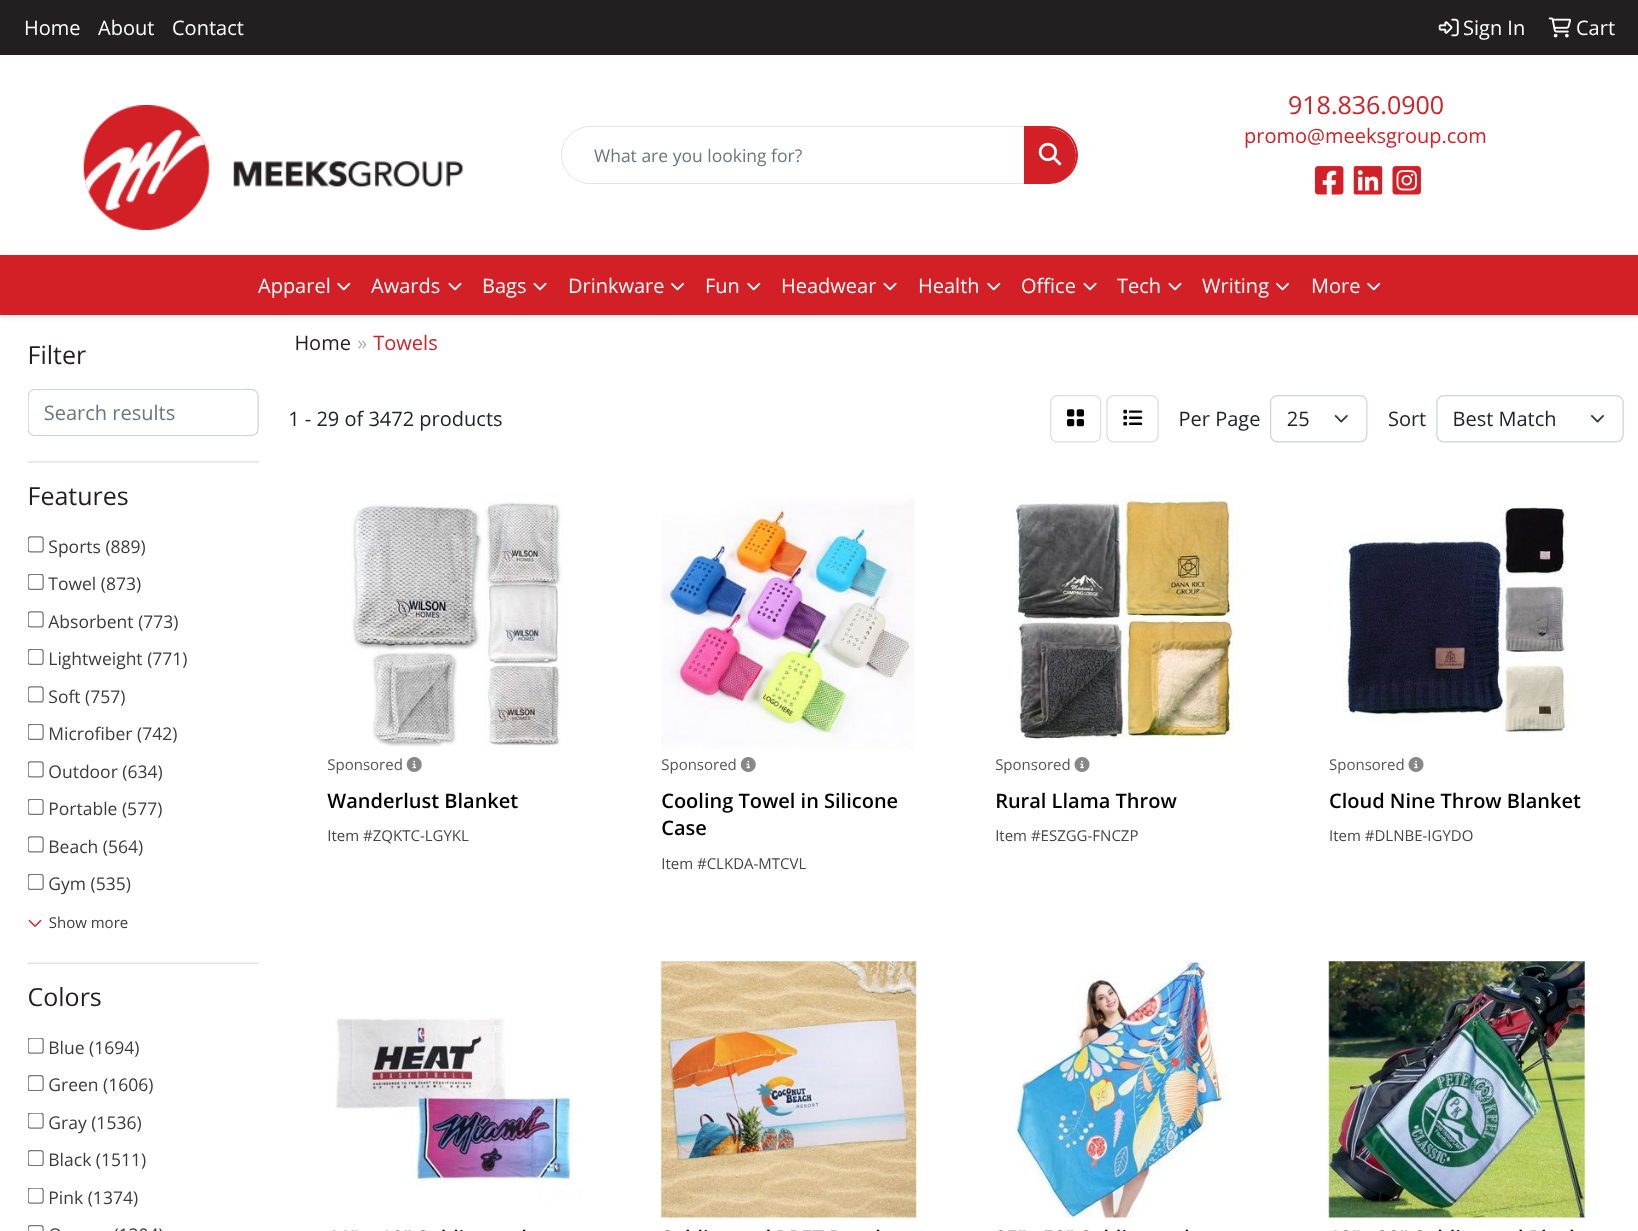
(async () => {
const canvas = document.querySelector("canvas")
canvas.width = 1638
canvas.height = 1231
const c = canvas.getContext("2d")
c.miterLimit = 4
c.fontKerning = "normal"
function T(s,x,y){c.fillText(s,x,y)}
function R(x,y,w,h){c.fillRect(x,y,w,h)}
async function I(src,x,y,w,h){const img=new Image();img.src=src;await img.decode();c.drawImage(img,x,y,w,h)}
let path
c.fillStyle="#fff"
R(0,0,1638,1231)
c.fillStyle="#231f20"
R(0,0,1638,55)
c.font="20px Open Sans"
c.fillStyle="#fff"
T("Home",24,35)
T("About",98,35)
T("Contact",172,35)
await I("1.png",1438,18,21,19)
T("Sign In",1463,35)
await I("2.png",1548,17,23,21)
T("Cart",1576,35)
await I("3.png",83,105,380,125)
c.beginPath()
c.roundRect(561.5,126.5,463,57,[28.5,0,0,28.5])
c.strokeStyle="#e4e4e4"
c.stroke()
c.font="17.5px Open Sans"
c.fillStyle="#6c757d"
T("What are you looking for?",594,162)
c.fillStyle="#d32027"
c.beginPath()
c.roundRect(1024,128,52,55,[0,27.5,27.5,0])
c.fill()
path = new Path2D("M1024 126h25c16 0 29 13 29 29c0 16-13 29-29 29h-25zm0 2h25c15 0 27 12 27 27c0 15-12 27-27 27h-25z")
c.fill(path,"evenodd")
await I("4.png",1038,142,24,24)
c.font="25px Open Sans"
T("918.836.0900",1288,114)
c.font="20px Open Sans"
T("promo@meeksgroup.com",1244,143)
await I("5.png",1315,166,29,29)
await I("6.png",1353,166,30,29)
await I("7.png",1392,166,29,29)
c.fillStyle="#00000012"
c.filter="blur(2.5px)"
c.beginPath()
c.rect(0,258,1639,60)
c.fill()
c.filter="none"
c.fillStyle="#d32027"
R(0,255,1638,60)
c.fillStyle="#fff"
T("Apparel",258,293)
await I("8.png",337,282,14,9)
T("Awards",371,293)
await I("9.png",448,282,14,9)
T("Bags",482,293)
await I("9.png",533,282,14,9)
T("Drinkware",568,293)
await I("10.png",671,282,13,9)
T("Fun",705,293)
await I("8.png",747,282,14,9)
T("Headwear",781,293)
await I("9.png",883,282,14,9)
T("Health",918,293)
await I("8.png",987,282,14,9)
T("Office",1021,293)
await I("9.png",1083,282,14,9)
T("Tech",1117,293)
await I("9.png",1168,282,14,9)
T("Writing",1202,293)
await I("10.png",1276,282,13,9)
T("More",1311,293)
await I("8.png",1367,282,14,9)
await I("11.png",27,334,1597,897)
})()
